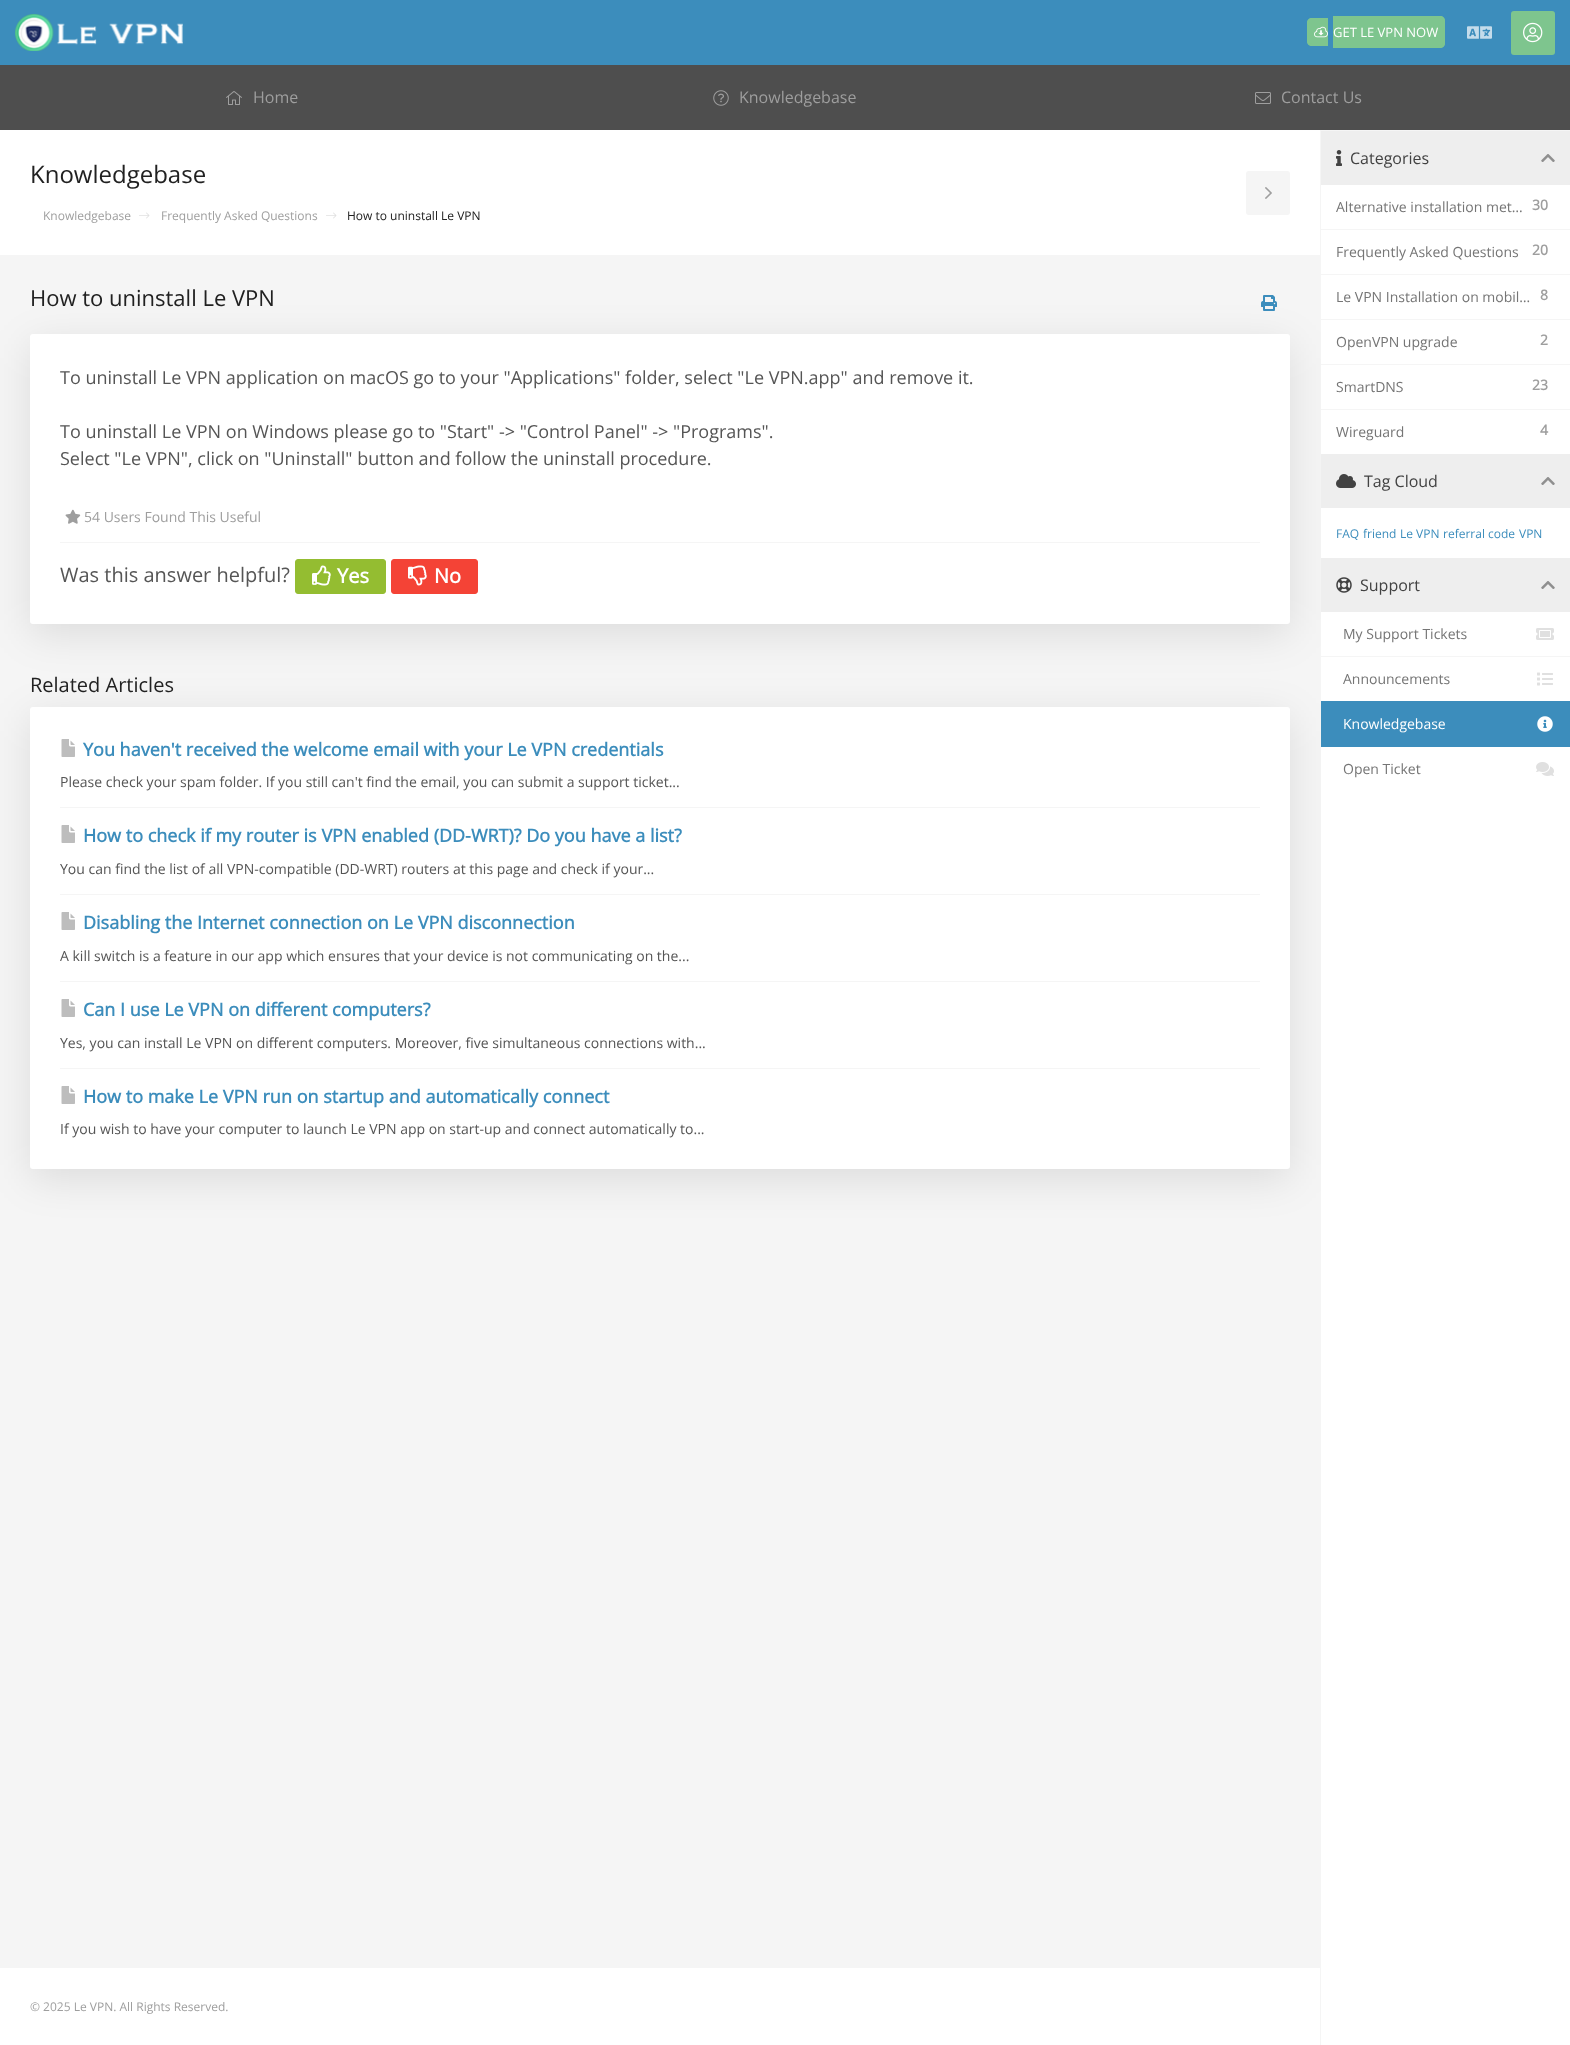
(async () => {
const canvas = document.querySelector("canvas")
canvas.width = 1570
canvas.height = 2045
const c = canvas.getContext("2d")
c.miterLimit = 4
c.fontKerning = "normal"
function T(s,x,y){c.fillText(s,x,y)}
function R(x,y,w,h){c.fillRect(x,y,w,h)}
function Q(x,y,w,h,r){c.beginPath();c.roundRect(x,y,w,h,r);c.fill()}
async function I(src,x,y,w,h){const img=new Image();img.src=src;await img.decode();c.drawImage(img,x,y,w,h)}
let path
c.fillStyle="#f5f5f5"
R(0,0,1570,2045)
c.fillStyle="#3c8dbc"
R(0,0,1570,65)
await I("1.png",15,14,168,37)
c.fillStyle="#7ec58e"
c.beginPath()
c.roundRect(1307,18,21,28,[5,0,0,5])
c.fill()
path = new Path2D("M1312 18h16v28h-16c-3 0-5-2-5-5v-18c0-3 2-5 5-5zm0 2h16v24h-16c-1.5 0-3-1.5-3-3v-18c0-1.5 1.5-3 3-3z")
c.fill(path,"evenodd")
await I("2.png",1314,26,14,12)
c.beginPath()
c.roundRect(1333,16,112,32,[0,5,5,0])
c.fill()
path = new Path2D("M1333 16h107c3 0 5 2 5 5v22c0 3-2 5-5 5h-107zm0 2h107c2 0 3 1 3 3v22c0 2-1 3-3 3h-107z")
c.fill(path,"evenodd")
c.font="13px Open Sans"
c.fillStyle="#fff"
T("GET LE VPN NOW",1333,37)
await I("3.png",1467,26,25,13)
c.fillStyle="#7ec58e"
Q(1511,11,44,44,3)
await I("4.png",1523,22,20,21)
c.fillStyle="#4e4e4e"
R(0,65,1570,65)
await I("5.png",226,91,16,14)
c.font="16px Open Sans"
c.fillStyle="#9e9e9e"
T("Home",253,103)
await I("6.png",713,90,16,16)
T("Knowledgebase",739,103)
await I("7.png",1255,92,16,12)
T("Contact Us",1281,103)
c.fillStyle="#fff"
R(0,130,1320,125)
c.font="24px Open Sans"
c.fillStyle="#212121"
T("Knowledgebase",30,183)
c.font="12px Open Sans"
c.fillStyle="#9e9e9e"
T("Knowledgebase",43,220)
await I("8.png",139,212,11,7)
T("Frequently Asked Questions",161,220)
await I("8.png",326,212,11,7)
c.fillStyle="#212121"
T("How to uninstall Le VPN",347,220)
c.fillStyle="#f5f5f5"
Q(1246,171,44,44,3)
await I("9.png",1265,187,7,12)
c.fillStyle="#0000001a"
c.filter="blur(20px)"
c.beginPath()
c.roundRect(30,344,1260,290,3)
c.fill()
c.filter="none"
c.filter="blur(20px)"
c.beginPath()
c.roundRect(30,717,1260,462,3)
c.fill()
c.filter="none"
c.fillStyle="#fff"
R(1321,185,249,1860)
c.fillStyle="#eee"
R(1321,131,249,54)
await I("10.png",1336,150,6,16)
c.font="16px Open Sans"
c.fillStyle="#424242"
T("Categories",1350,164)
await I("11.png",1541,154,14,8)
c.fillStyle="#f5f5f5"
R(1321,229,249,1)
c.font="14px Open Sans"
c.fillStyle="#757575"
T("Alternative installation met…",1336,212)
c.font="bold 14px Open Sans"
c.fillStyle="#9e9e9e"
T("30",1532,210)
c.fillStyle="#f5f5f5"
R(1321,274,249,1)
c.font="14px Open Sans"
c.fillStyle="#757575"
T("Frequently Asked Questions",1336,257)
c.font="bold 14px Open Sans"
c.fillStyle="#9e9e9e"
T("20",1532,255)
c.fillStyle="#f5f5f5"
R(1321,319,249,1)
c.font="14px Open Sans"
c.fillStyle="#757575"
T("Le VPN Installation on mobil…",1336,302)
c.font="bold 14px Open Sans"
c.fillStyle="#9e9e9e"
T("8",1540,300)
c.fillStyle="#f5f5f5"
R(1321,364,249,1)
c.font="14px Open Sans"
c.fillStyle="#757575"
T("OpenVPN upgrade",1336,347)
c.font="bold 14px Open Sans"
c.fillStyle="#9e9e9e"
T("2",1540,345)
c.font="14px Open Sans"
c.fillStyle="#757575"
T("SmartDNS",1336,392)
c.font="bold 14px Open Sans"
c.fillStyle="#9e9e9e"
T("23",1532,390)
c.fillStyle="#f5f5f5"
R(1321,409,249,1)
c.font="14px Open Sans"
c.fillStyle="#757575"
T("Wireguard",1336,437)
c.font="bold 14px Open Sans"
c.fillStyle="#9e9e9e"
T("4",1540,435)
c.fillStyle="#eee"
R(1321,454,249,54)
await I("12.png",1336,474,20,14)
c.font="16px Open Sans"
c.fillStyle="#424242"
T("Tag Cloud",1364,487)
await I("11.png",1541,477,14,8)
c.font="12px Open Sans"
c.fillStyle="#3c8dbc"
T("FAQ",1336,538)
T("friend",1363,538)
T("Le VPN",1400,538)
T("referral code",1443,538)
T("VPN",1519,538)
c.fillStyle="#eee"
R(1321,558,249,54)
await I("13.png",1336,577,16,16)
c.font="16px Open Sans"
c.fillStyle="#424242"
T("Support",1360,591)
await I("11.png",1541,581,14,8)
c.fillStyle="#f5f5f5"
R(1321,656,249,1)
c.font="14px Open Sans"
c.fillStyle="#757575"
T("My Support Tickets",1343,639)
await I("14.png",1536,628,18,12)
T("Announcements",1343,684)
await I("15.png",1537,672,16,14)
c.fillStyle="#3c8dbc"
R(1321,701,249,46)
c.fillStyle="#fff"
T("Knowledgebase",1343,729)
await I("16.png",1537,716,16,16)
c.fillStyle="#757575"
T("Open Ticket",1343,774)
await I("17.png",1536,762,18,14)
c.font="22px Open Sans"
c.fillStyle="#212121"
T("How to uninstall Le VPN",30,306)
await I("18.png",1261,295,16,16)
c.fillStyle="#fff"
Q(30,334,1260,290,3)
c.font="18px Open Sans"
c.fillStyle="#555"
T("To uninstall Le VPN application on macOS go to your \"Applications\" folder, select \"Le VPN.app\" and remove it.",60,384)
T("To uninstall Le VPN on Windows please go to \"Start\" -> \"Control Panel\" -> \"Programs\".",60,438)
T("Select \"Le VPN\", click on \"Uninstall\" button and follow the uninstall procedure.",60,465)
await I("19.png",65,509,16,15)
c.font="14px Open Sans"
c.fillStyle="#9e9e9e"
T("54 Users Found This Useful",84,522)
c.fillStyle="#f5f5f5"
R(60,542,1200,1)
c.font="20px Open Sans"
c.fillStyle="#555"
T("Was this answer helpful?",60,582)
c.fillStyle="#94bd31"
c.beginPath()
c.roundRect(295.5,559.5,90,34,2.5)
c.fill()
c.strokeStyle="#94bd31"
c.stroke()
await I("20.png",312,565,19,21)
c.font="bold 20px Open Sans"
c.fillStyle="#fff"
T("Yes",337,583)
c.fillStyle="#f44336"
c.beginPath()
c.roundRect(391.5,559.5,86,34,2.5)
c.fill()
c.strokeStyle="#f44336"
c.stroke()
await I("21.png",408,565,19,21)
c.fillStyle="#fff"
T("No",434,583)
c.font="20px Open Sans"
c.fillStyle="#212121"
T("Related Articles",30,692)
c.fillStyle="#fff"
Q(30,707,1260,462,3)
await I("22.png",61,739,14,18)
c.font="bold 18px Open Sans"
c.fillStyle="#3c8dbc"
T("You haven't received the welcome email with your Le VPN credentials",83,756)
c.font="14px Open Sans"
c.fillStyle="#555"
T("Please check your spam folder. If you still can't find the email, you can submit a support ticket...",60,787)
c.fillStyle="#f5f5f5"
R(60,807,1200,1)
await I("22.png",61,825,14,18)
c.font="bold 18px Open Sans"
c.fillStyle="#3c8dbc"
T("How to check if my router is VPN enabled (DD-WRT)? Do you have a list?",83,842)
c.font="14px Open Sans"
c.fillStyle="#555"
T("You can find the list of all VPN-compatible (DD-WRT) routers at this page and check if your...",60,874)
c.fillStyle="#f5f5f5"
R(60,894,1200,1)
await I("22.png",61,912,14,18)
c.font="bold 18px Open Sans"
c.fillStyle="#3c8dbc"
T("Disabling the Internet connection on Le VPN disconnection",83,929)
c.font="14px Open Sans"
c.fillStyle="#555"
T("A kill switch is a feature in our app which ensures that your device is not communicating on the...",60,961)
c.fillStyle="#f5f5f5"
R(60,981,1200,1)
await I("22.png",61,999,14,18)
c.font="bold 18px Open Sans"
c.fillStyle="#3c8dbc"
T("Can I use Le VPN on different computers?",83,1016)
c.font="14px Open Sans"
c.fillStyle="#555"
T("Yes, you can install Le VPN on different computers. Moreover, five simultaneous connections with...",60,1048)
c.fillStyle="#f5f5f5"
R(60,1068,1200,1)
await I("22.png",61,1086,14,18)
c.font="bold 18px Open Sans"
c.fillStyle="#3c8dbc"
T("How to make Le VPN run on startup and automatically connect",83,1103)
c.font="14px Open Sans"
c.fillStyle="#555"
T("If you wish to have your computer to launch Le VPN app on start-up and connect automatically to...",60,1134)
c.fillStyle="#fff"
R(0,1968,1320,77)
c.font="12px Open Sans"
c.fillStyle="#9e9e9e"
T("© 2025 Le VPN. All Rights Reserved.",30,2011)
})()
